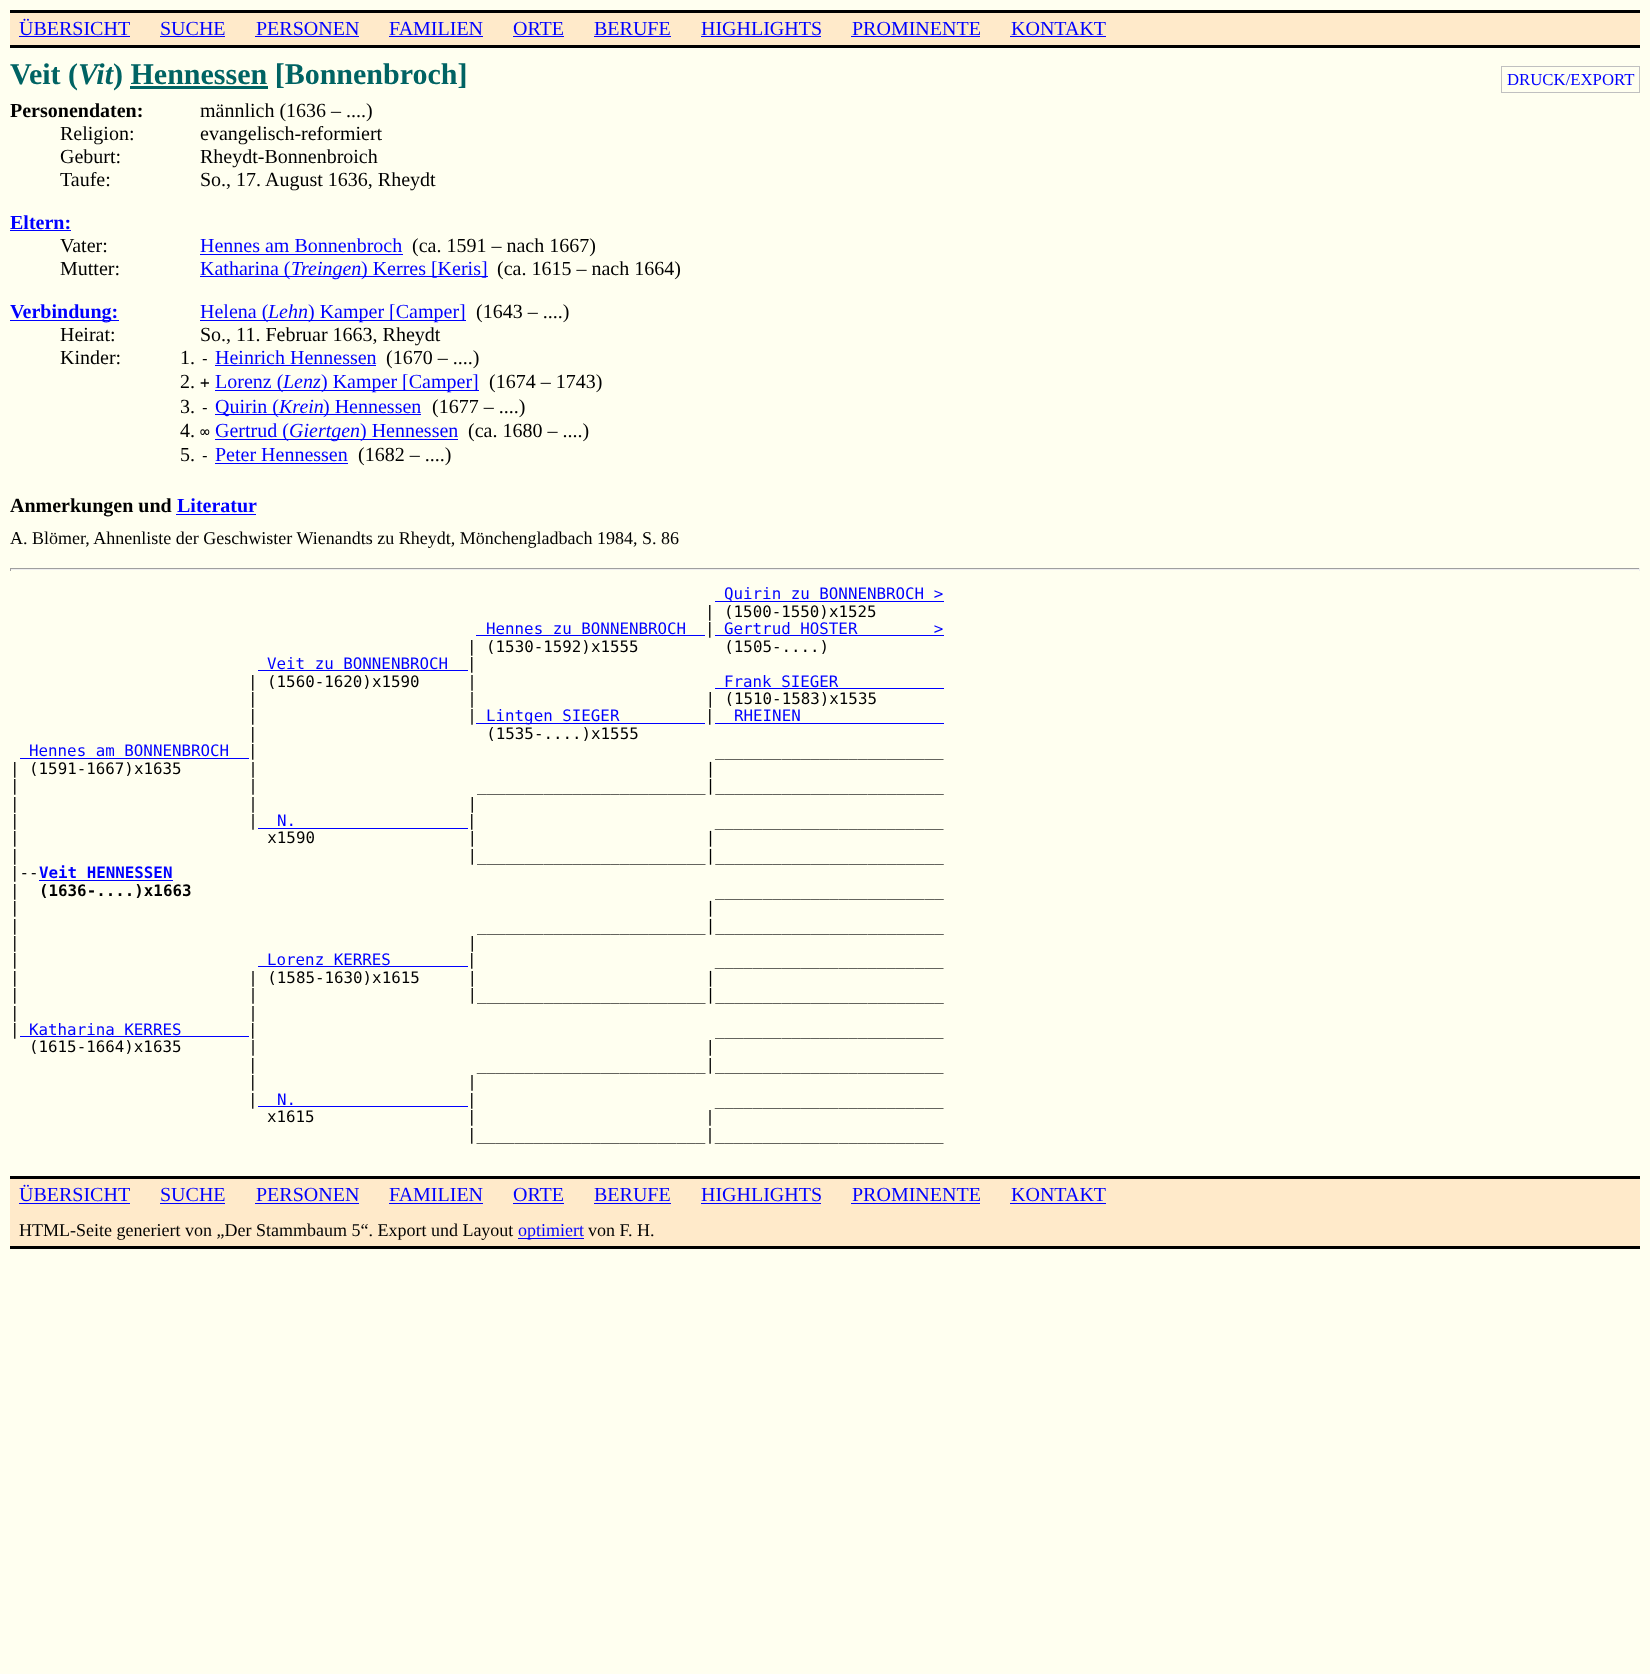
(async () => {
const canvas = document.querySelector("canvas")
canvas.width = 1650
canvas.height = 1674
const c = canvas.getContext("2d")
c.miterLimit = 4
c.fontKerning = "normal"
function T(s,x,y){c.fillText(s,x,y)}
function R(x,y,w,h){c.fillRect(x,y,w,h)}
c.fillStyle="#fffff0"
R(0,0,1650,1674)
c.fillStyle="#ffeaca"
R(10,13,1630,32)
c.fillStyle="#000"
R(10,10,1630,3)
R(10,45,1630,3)
c.font="20px Liberation Serif"
c.fillStyle="#00f"
T("ÜBERSICHT",19,35)
R(19,36,111,1)
T("SUCHE",160,35)
R(160,36,65,1)
T("PERSONEN",256,35)
R(255,36,104,1)
T("FAMILIEN",389,35)
R(389,36,94,1)
T("ORTE",513,35)
R(513,36,51,1)
T("BERUFE",594,35)
R(594,36,77,1)
T("HIGHLIGHTS",701,35)
R(701,36,120,1)
T("PROMINENTE",852,35)
R(851,36,129,1)
T("KONTAKT",1011,35)
R(1010,36,96,1)
c.font="bold 30px Liberation Serif"
c.fillStyle="#006363"
T("Veit (",10,84)
c.font="italic bold 30px Liberation Serif"
T("Vit",78,84)
c.font="bold 30px Liberation Serif"
T(") Hennessen [Bonnenbroch]",113,84)
R(130,86,138,3)
c.strokeStyle="#c0c0c0"
c.strokeRect(1501.5,66.5,138,26)
c.font="16.75px Liberation Serif"
c.fillStyle="#00f"
T("DRUCK/EXPORT",1507,85)
c.font="bold 20px Liberation Serif"
c.fillStyle="#000"
T("Personendaten:",10,117)
c.font="20px Liberation Serif"
T("männlich (1636 – ....)",200,117)
T("Religion:",60,140)
T("evangelisch-reformiert",200,140)
T("Geburt:",60,163)
T("Rheydt-Bonnenbroich",200,163)
T("Taufe:",60,186)
T("So., 17. August 1636, Rheydt",200,186)
c.font="bold 20px Liberation Serif"
c.fillStyle="#00f"
T("Eltern:",10,229)
R(10,230,61,1)
c.font="20px Liberation Serif"
c.fillStyle="#000"
T("Vater:",60,252)
c.fillStyle="#00f"
T("Hennes am Bonnenbroch",200,252)
R(200,254,203,1)
c.fillStyle="#000"
T("(ca. 1591 – nach 1667)",412,252)
T("Mutter:",60,275)
c.fillStyle="#00f"
R(200,276,288,1)
T("Katharina (",200,275)
c.font="italic 20px Liberation Serif"
T("Treingen",291,275)
c.font="20px Liberation Serif"
T(") Kerres [Keris]",361,275)
c.fillStyle="#000"
T("(ca. 1615 – nach 1664)",497,275)
c.fillStyle="#00f"
R(10,320,109,1)
c.font="bold 20px Liberation Serif"
T("Verbindung:",10,318)
R(200,320,266,1)
c.font="20px Liberation Serif"
T("Helena (",200,318)
c.font="italic 20px Liberation Serif"
T("Lehn",268,318)
c.font="20px Liberation Serif"
T(") Kamper [Camper]",308,318)
c.fillStyle="#000"
T("(1643 – ....)",476,318)
T("Heirat:",60,341)
T("So., 11. Februar 1663, Rheydt",200,341)
T("Kinder:",60,364)
T("1.",180,364)
c.font="16px DejaVu Sans Mono"
T("-",200,364)
c.font="20px Liberation Serif"
c.fillStyle="#00f"
T("Heinrich Hennessen",215,364)
R(215,365,161,1)
c.fillStyle="#000"
T("(1670 – ....)",386,364)
T("2.",180,388)
c.font="16px DejaVu Sans Mono"
T("+",200,388)
c.fillStyle="#00f"
R(215,390,264,1)
c.font="20px Liberation Serif"
T("Lorenz (",215,388)
c.font="italic 20px Liberation Serif"
T("Lenz",283,388)
c.font="20px Liberation Serif"
T(") Kamper [Camper]",321,388)
c.fillStyle="#000"
T("(1674 – 1743)",489,388)
T("3.",180,413)
c.font="16px DejaVu Sans Mono"
T("-",200,413)
c.fillStyle="#00f"
R(215,414,206,1)
c.font="20px Liberation Serif"
T("Quirin (",215,413)
c.font="italic 20px Liberation Serif"
T("Krein",279,413)
c.font="20px Liberation Serif"
T(") Hennessen",323,413)
c.fillStyle="#000"
T("(1677 – ....)",432,413)
T("4.",180,437)
c.font="16px DejaVu Sans Mono"
T("∞",200,437)
c.fillStyle="#00f"
R(215,439,243,1)
c.font="20px Liberation Serif"
T("Gertrud (",215,437)
c.font="italic 20px Liberation Serif"
T("Giertgen",289,437)
c.font="20px Liberation Serif"
T(") Hennessen",360,437)
c.fillStyle="#000"
T("(ca. 1680 – ....)",468,437)
T("5.",180,461)
c.font="16px DejaVu Sans Mono"
T("-",200,461)
c.font="20px Liberation Serif"
c.fillStyle="#00f"
T("Peter Hennessen",215,461)
R(215,463,133,1)
c.fillStyle="#000"
T("(1682 – ....)",358,461)
c.font="bold 20px Liberation Serif"
T("Anmerkungen und",10,512)
c.fillStyle="#00f"
T("Literatur",177,512)
R(176,514,80,1)
c.font="18px Liberation Serif"
c.fillStyle="#000"
T("A. Blömer, Ahnenliste der Geschwister Wienandts zu Rheydt, Mönchengladbach 1984, S. 86",10,544)
c.fillStyle="#9f9f9f"
R(10,568,1630,1)
c.fillStyle="#eee"
R(1639,568,1,3)
R(10,569,1630,1)
c.fillStyle="#9f9f9f"
R(10,568,1,3)
c.fillStyle="#00f"
R(715,601,229,1)
c.font="15.83px DejaVu Sans Mono"
T("Quirin zu BONNENBROCH >",724,599)
c.fillStyle="#000"
T("| (1500-1550)x1525",705,617)
c.fillStyle="#00f"
T("Hennes zu BONNENBROCH",486,634)
R(476,635,229,1)
c.fillStyle="#000"
T("|",705,634)
c.fillStyle="#00f"
T("Gertrud HOSTER        >",724,634)
R(715,635,229,1)
c.fillStyle="#000"
T("| (1530-1592)x1555         (1505-....)",467,652)
c.fillStyle="#00f"
T("Veit zu BONNENBROCH",267,669)
R(258,670,210,1)
c.fillStyle="#000"
T("|",467,669)
T("| (1560-1620)x1590     |",248,687)
c.fillStyle="#00f"
T("Frank SIEGER",724,687)
R(715,688,229,1)
c.fillStyle="#000"
T("|                      |                        | (1510-1583)x1535",248,704)
T("|                      |",248,721)
c.fillStyle="#00f"
R(476,723,229,1)
T("Lintgen SIEGER",486,721)
c.fillStyle="#000"
T("|",705,721)
c.fillStyle="#00f"
T("RHEINEN",734,721)
R(715,723,229,1)
c.fillStyle="#000"
T("|                        (1535-....)x1555",248,739)
c.fillStyle="#00f"
T("Hennes am BONNENBROCH",29,756)
R(20,758,229,1)
c.fillStyle="#000"
T("|                                                ________________________",248,756)
T("| (1591-1667)x1635       |                                               |",10,774)
T("|                        |                       ________________________|________________________",10,791)
T("|                        |                      |",10,809)
T("|                        |",10,826)
c.fillStyle="#00f"
T("N.",277,826)
R(258,828,210,1)
c.fillStyle="#000"
T("|                         ________________________",467,826)
T("|                          x1590                |                        |",10,843)
T("|                                               |________________________|________________________",10,861)
T("|--",10,878)
c.font="bold 15.83px DejaVu Sans Mono"
c.fillStyle="#00f"
T("Veit HENNESSEN",39,878)
R(39,880,134,1)
c.font="15.83px DejaVu Sans Mono"
c.fillStyle="#000"
T("|",10,896)
c.font="bold 15.83px DejaVu Sans Mono"
T("(1636-....)x1663",39,896)
c.font="15.83px DejaVu Sans Mono"
T("________________________",715,896)
T("|                                                                        |",10,913)
T("|                                                ________________________|________________________",10,931)
T("|                                               |",10,948)
T("|",10,965)
c.fillStyle="#00f"
T("Lorenz KERRES",267,965)
R(258,966,210,1)
c.fillStyle="#000"
T("|                         ________________________",467,965)
T("|                        | (1585-1630)x1615     |                        |",10,983)
T("|                        |                      |________________________|________________________",10,1000)
T("|                        |",10,1018)
T("|",10,1035)
c.fillStyle="#00f"
T("Katharina KERRES",29,1035)
R(20,1036,229,1)
c.fillStyle="#000"
T("|                                                ________________________",248,1035)
T("(1615-1664)x1635       |                                               |",29,1052)
T("|                       ________________________|________________________",248,1070)
T("|                      |",248,1087)
T("|",248,1105)
c.fillStyle="#00f"
T("N.",277,1105)
R(258,1106,210,1)
c.fillStyle="#000"
T("|                         ________________________",467,1105)
T("x1615                |                        |",267,1122)
T("|________________________|________________________",467,1140)
c.fillStyle="#ffeaca"
R(10,1179,1630,67)
c.fillStyle="#000"
R(10,1176,1630,3)
R(10,1246,1630,3)
c.font="20px Liberation Serif"
c.fillStyle="#00f"
T("ÜBERSICHT",19,1201)
R(19,1203,111,1)
T("SUCHE",160,1201)
R(160,1203,65,1)
T("PERSONEN",256,1201)
R(255,1203,104,1)
T("FAMILIEN",389,1201)
R(389,1203,94,1)
T("ORTE",513,1201)
R(513,1203,51,1)
T("BERUFE",594,1201)
R(594,1203,77,1)
T("HIGHLIGHTS",701,1201)
R(701,1203,120,1)
T("PROMINENTE",852,1201)
R(851,1203,129,1)
T("KONTAKT",1011,1201)
R(1010,1203,96,1)
c.font="18px Liberation Serif"
c.fillStyle="#000"
T("HTML-Seite generiert von „Der Stammbaum 5“. Export und Layout",19,1236)
c.fillStyle="#00f"
R(518,1238,66,1)
T("optimiert",518,1236)
c.fillStyle="#000"
T("von F. H.",588,1236)
})()
